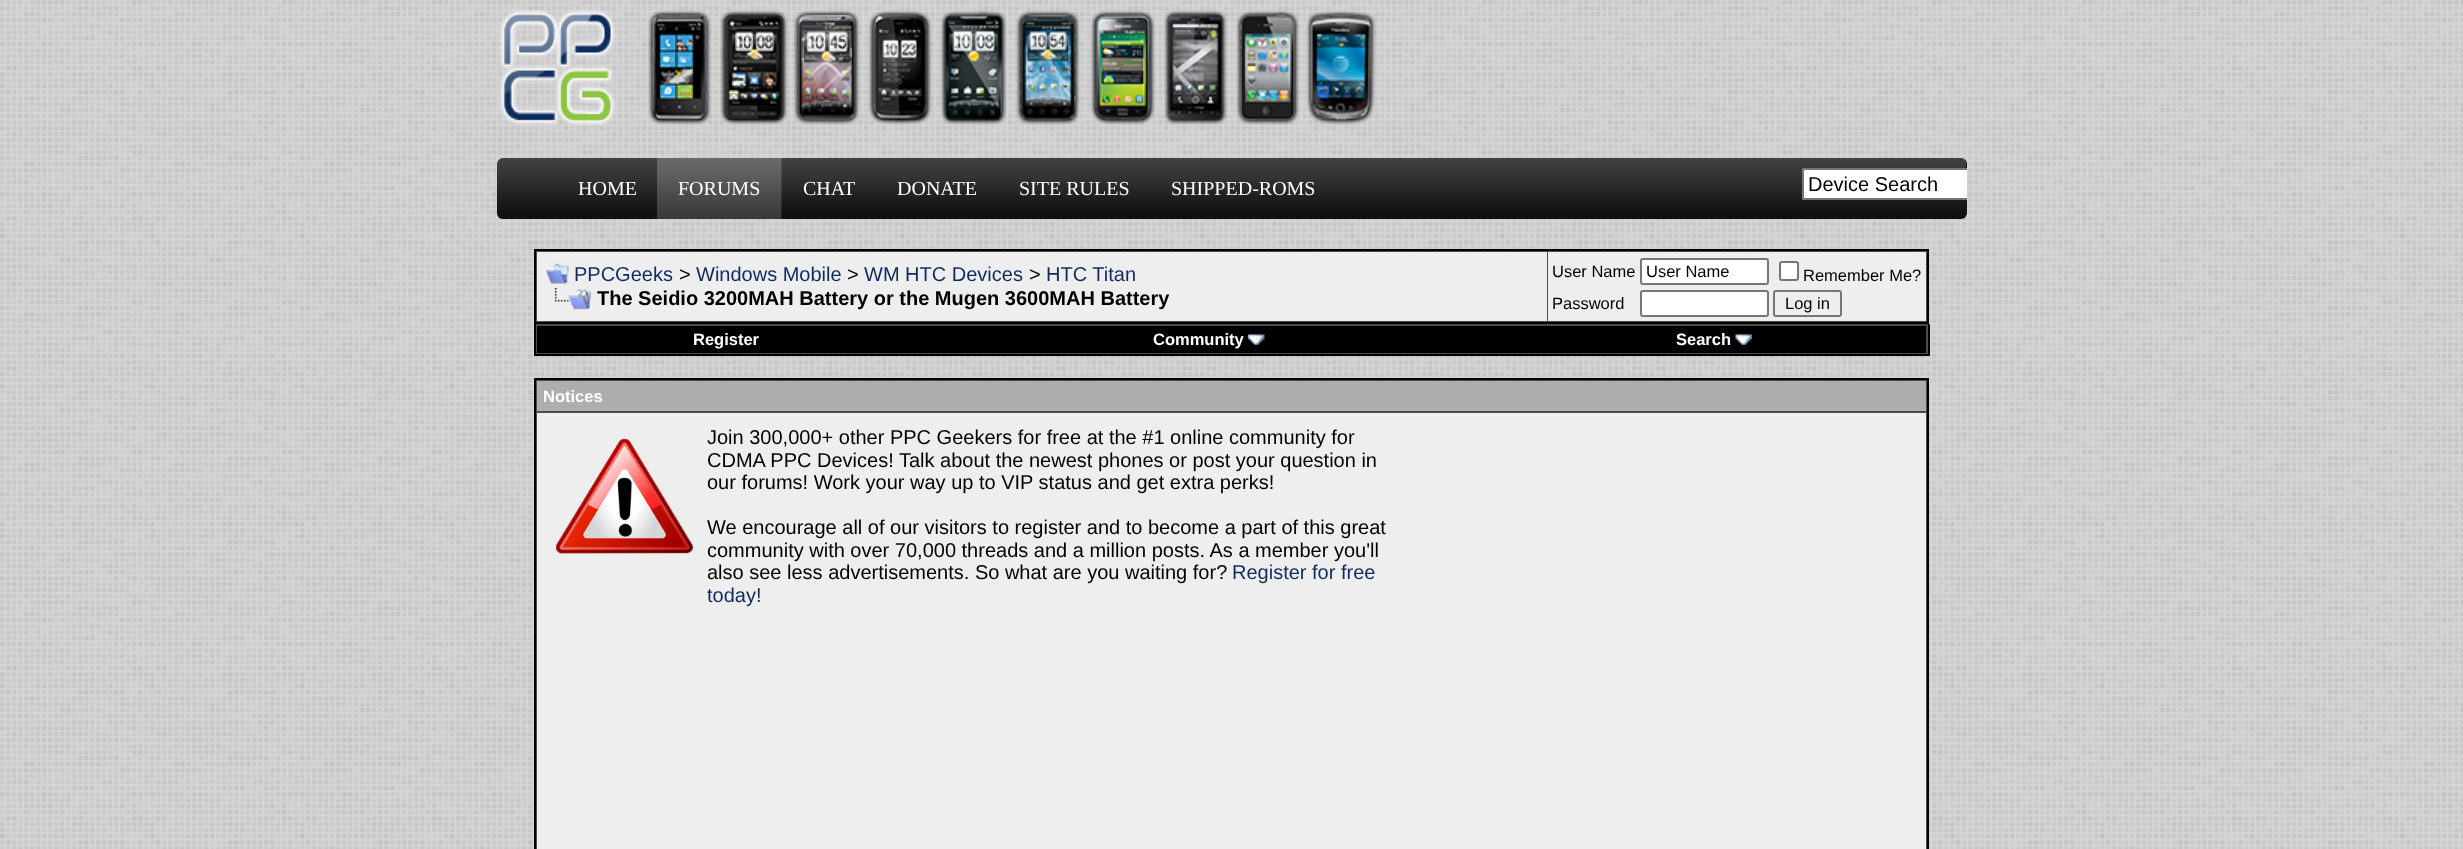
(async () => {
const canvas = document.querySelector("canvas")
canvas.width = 2463
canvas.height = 849
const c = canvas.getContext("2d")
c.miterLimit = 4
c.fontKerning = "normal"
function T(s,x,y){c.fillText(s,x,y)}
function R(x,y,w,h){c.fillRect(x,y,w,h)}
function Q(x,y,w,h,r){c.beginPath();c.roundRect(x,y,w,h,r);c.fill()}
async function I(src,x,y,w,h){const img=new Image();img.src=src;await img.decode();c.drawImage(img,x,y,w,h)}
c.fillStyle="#fff"
R(0,0,2463,849)
await I("1.png",0,0,2463,849)
await I("2.png",499,9,877,117)
c.fillStyle="#121212"
Q(497,158,1470,61,6)
await I("3.png",496,158,1471,61)
c.font="20px Liberation Serif"
c.fillStyle="#fff"
T("HOME",578,195)
await I("4.png",657,157,125,62)
T("FORUMS",678,195)
T("CHAT",803,195)
T("DONATE",897,195)
T("SITE RULES",1019,195)
T("SHIPPED-ROMS",1171,195)
c.beginPath()
c.roundRect(1802,168,165,32,[3,0,0,3])
c.fill()
c.save()
c.beginPath()
c.rect(497,8,1470,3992)
c.clip()
c.beginPath()
c.roundRect(1803,169,275,30,2)
c.strokeStyle="#767676"
c.lineWidth=2
c.stroke()
c.restore()
c.font="20px Liberation Sans"
c.fillStyle="#000"
T("Device Search",1808,191)
c.fillStyle="#4c4c4c"
c.beginPath()
c.rect(535,250,1393,73)
c.fill()
c.strokeStyle="#000"
c.lineWidth=2
c.stroke()
c.fillStyle="#eee"
R(537,252,1010,69)
await I("5.png",546,263,23,21)
c.fillStyle="#0d2c5d"
T("PPCGeeks",574,281)
c.fillStyle="#000"
T(">",679,281)
c.fillStyle="#0d2c5d"
T("Windows Mobile",696,281)
c.fillStyle="#000"
T(">",847,281)
c.fillStyle="#0d2c5d"
T("WM HTC Devices",864,281)
c.fillStyle="#000"
T(">",1029,281)
c.fillStyle="#0d2c5d"
T("HTC Titan",1046,281)
await I("6.png",554,288,37,22)
c.font="bold 20px Liberation Sans"
c.fillStyle="#000"
T("The Seidio 3200MAH Battery or the Mugen 3600MAH Battery",597,305)
c.fillStyle="#eee"
R(1548,252,378,69)
c.font="16.5px Liberation Sans"
c.fillStyle="#000"
T("User Name",1552,277)
c.fillStyle="#fff"
c.beginPath()
c.roundRect(1641,259,127,25,2)
c.fill()
c.strokeStyle="#767676"
c.stroke()
c.fillStyle="#000"
T("User Name",1646,277)
c.fillStyle="#fff"
c.beginPath()
c.roundRect(1780,262,18,18,2)
c.fill()
c.stroke()
c.fillStyle="#000"
T("Remember Me?",1803,281)
T("Password",1552,309)
c.fillStyle="#fff"
c.beginPath()
c.roundRect(1641,291,127,25,2)
c.fill()
c.stroke()
c.beginPath()
c.roundRect(1774,291,67,25,2)
c.stroke()
c.fillStyle="#000"
T("Log in",1785,309)
c.fillStyle="#4c4c4c"
R(536,324,1392,30)
c.fillStyle="#000"
R(1928,324,2,32)
R(534,354,1395,2)
R(534,324,2,32)
R(537,326,1389,27)
c.font="bold 16.5px Liberation Sans"
c.fillStyle="#fff"
T("Register",693,345)
T("Community",1153,345)
await I("7.png",1248,334,17,11)
T("Search",1676,345)
await I("8.png",1735,334,17,11)
c.fillStyle="#4c4c4c"
c.beginPath()
c.rect(535,379,1393,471)
c.fill()
c.strokeStyle="#000"
c.stroke()
c.fillStyle="#aeaeae"
R(537,381,1389,30)
c.fillStyle="#fff"
T("Notices",543,402)
c.fillStyle="#eee"
R(537,413,1389,436)
await I("9.png",555,438,139,116)
c.font="20px Liberation Sans"
c.fillStyle="#000"
T("Join 300,000+ other PPC Geekers for free at the #1 online community for",707,444)
T("CDMA PPC Devices! Talk about the newest phones or post your question in",707,467)
T("our forums! Work your way up to VIP status and get extra perks!",707,489)
T("We encourage all of our visitors to register and to become a part of this great",707,534)
T("community with over 70,000 threads and a million posts. As a member you'll",707,557)
T("also see less advertisements. So what are you waiting for?",707,579)
c.fillStyle="#0d2c5d"
T("Register for free",1232,579)
T("today!",707,602)
})()
